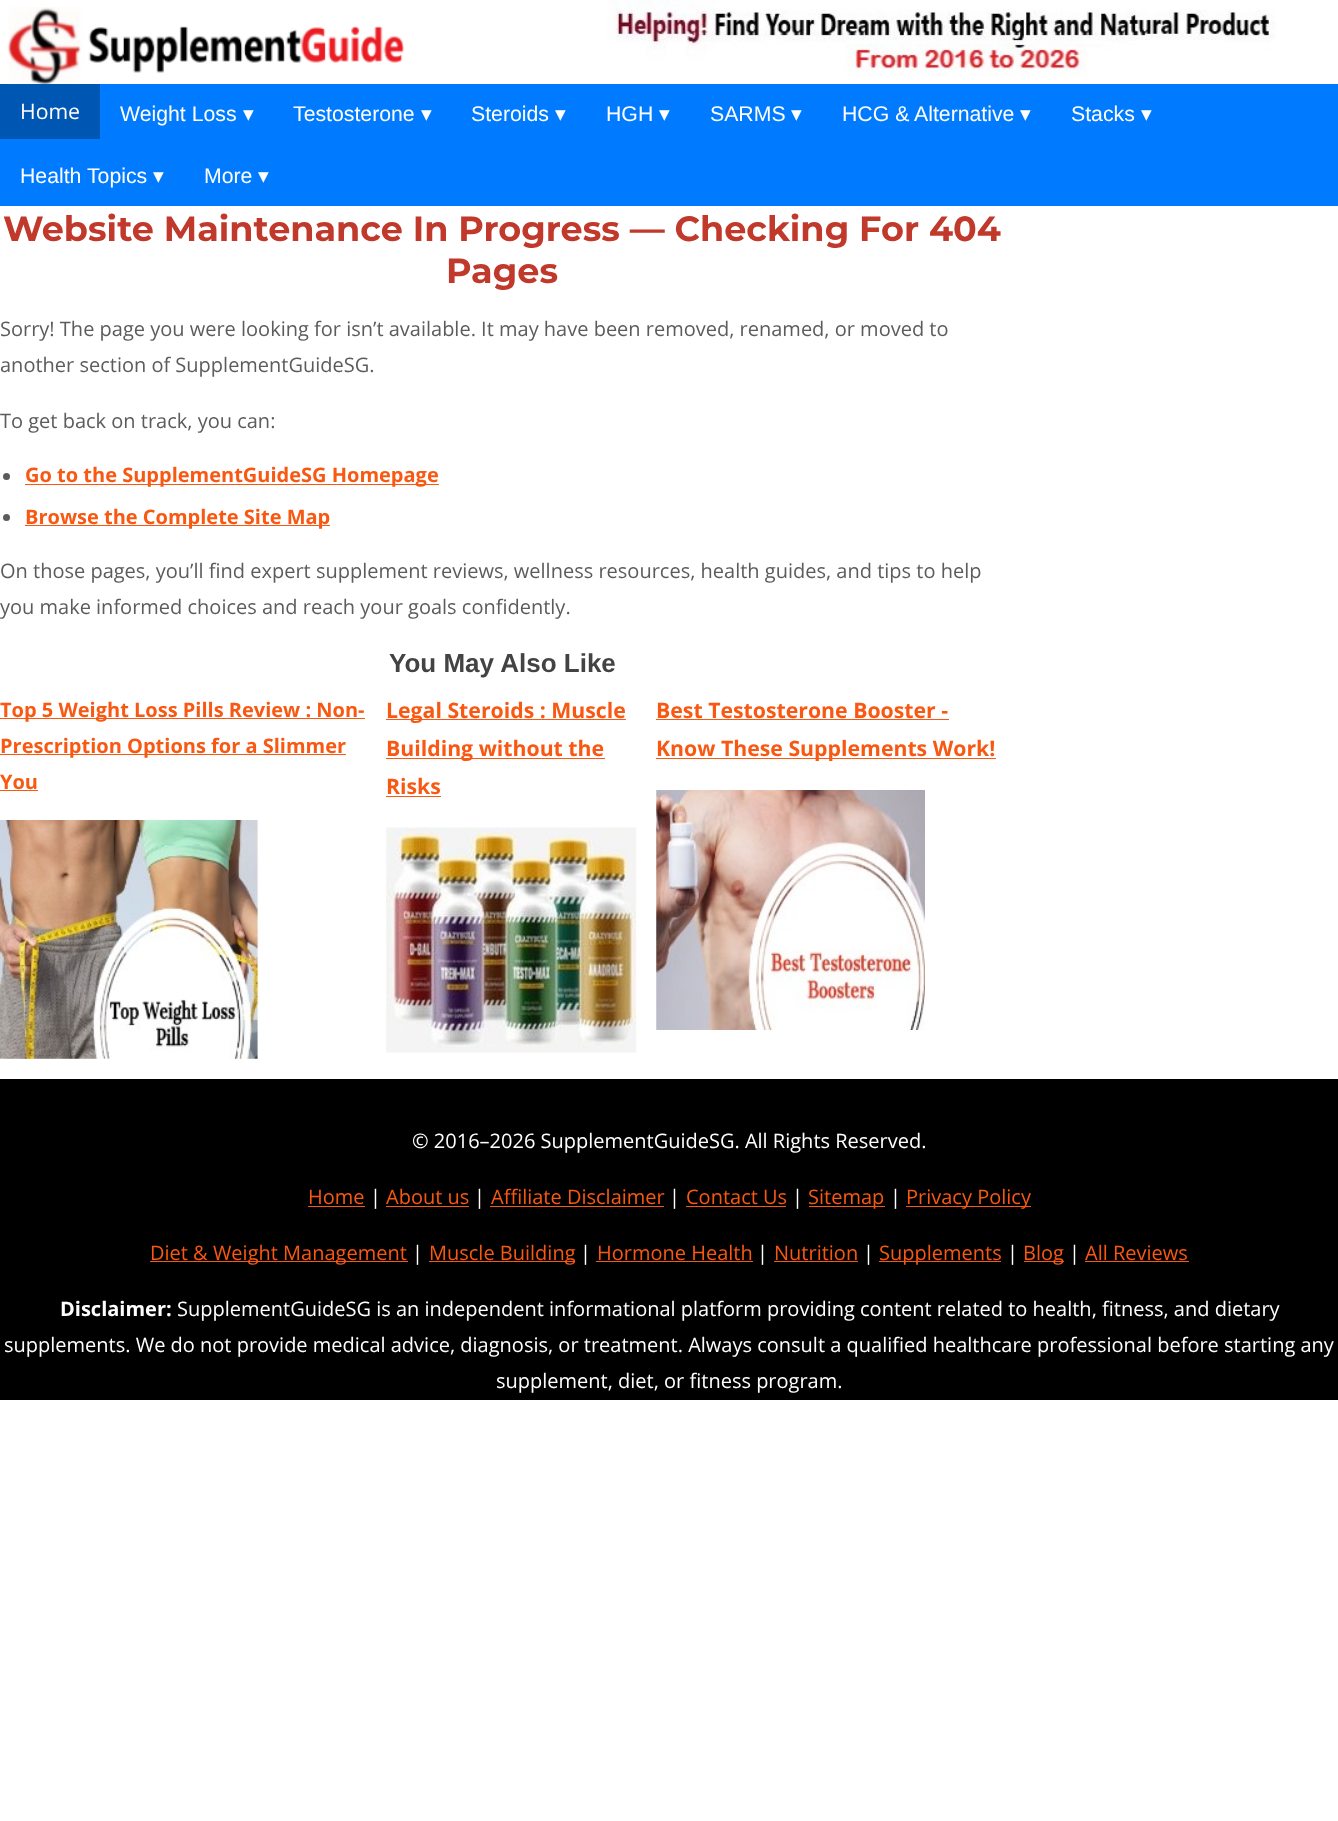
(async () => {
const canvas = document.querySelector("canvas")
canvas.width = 1338
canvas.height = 1821
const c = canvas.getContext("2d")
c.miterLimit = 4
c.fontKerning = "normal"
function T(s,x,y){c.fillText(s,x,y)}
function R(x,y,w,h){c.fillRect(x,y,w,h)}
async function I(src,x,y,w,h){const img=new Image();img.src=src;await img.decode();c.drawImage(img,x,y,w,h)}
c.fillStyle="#fff"
R(0,0,1338,1821)
await I("1.png",7,7,397,77)
await I("2.png",606,0,670,77)
c.fillStyle="#007bff"
R(0,84,1338,122)
c.fillStyle="#0056b3"
R(0,84,100,55)
c.font="21.25px Open Sans"
c.fillStyle="#fff"
T("Home",20,119)
c.font="21.25px Liberation Sans"
T("Weight Loss",120,121)
c.font="21.25px DejaVu Sans"
T("▾",243,121)
c.font="21.25px Liberation Sans"
T("Testosterone",293,121)
c.font="21.25px DejaVu Sans"
T("▾",421,121)
c.font="21.25px Liberation Sans"
T("Steroids",471,121)
c.font="21.25px DejaVu Sans"
T("▾",555,121)
c.font="21.25px Liberation Sans"
T("HGH",606,121)
c.font="21.25px DejaVu Sans"
T("▾",659,121)
c.font="21.25px Liberation Sans"
T("SARMS",710,121)
c.font="21.25px DejaVu Sans"
T("▾",791,121)
c.font="21.25px Liberation Sans"
T("HCG & Alternative",842,121)
c.font="21.25px DejaVu Sans"
T("▾",1020,121)
c.font="21.25px Liberation Sans"
T("Stacks",1071,121)
c.font="21.25px DejaVu Sans"
T("▾",1141,121)
c.font="21.25px Liberation Sans"
T("Health Topics",20,183)
c.font="21.25px DejaVu Sans"
T("▾",153,183)
c.font="21.25px Liberation Sans"
T("More",204,183)
c.font="21.25px DejaVu Sans"
T("▾",258,183)
c.font="bold 35px Montserrat"
c.fillStyle="#c0392b"
T("Website Maintenance In Progress — Checking For 404",3,241)
T("Pages",446,283)
c.font="20px Open Sans"
c.fillStyle="#5c5c5c"
T("Sorry! The page you were looking for isn’t available. It may have been removed, renamed, or moved to",0,336)
T("another section of SupplementGuideSG.",0,372)
T("To get back on track, you can:",0,428)
c.beginPath()
c.arc(6.5,476.5,3.5,0,7)
c.fill()
c.fillStyle="#f85811"
R(25,484,414,1)
c.font="bold 20px Open Sans"
T("Go to the SupplementGuideSG Homepage",25,482)
c.fillStyle="#5c5c5c"
c.beginPath()
c.arc(6.5,517.5,3.5,0,7)
c.fill()
c.fillStyle="#f85811"
R(25,525,305,1)
T("Browse the Complete Site Map",25,524)
c.font="20px Open Sans"
c.fillStyle="#5c5c5c"
T("On those pages, you’ll find expert supplement reviews, wellness resources, health guides, and tips to help",0,578)
T("you make informed choices and reach your goals confidently.",0,614)
c.font="bold 26px Liberation Sans"
c.fillStyle="#434343"
T("You May Also Like",389,672)
c.fillStyle="#f85811"
R(0,718,365,1)
c.font="bold 20px Open Sans"
T("Top 5 Weight Loss Pills Review : Non-",0,717)
R(0,754,346,1)
T("Prescription Options for a Slimmer",0,753)
T("You",0,789)
R(0,790,38,1)
await I("3.png",0,820,259,239)
R(386,719,240,1)
c.font="bold 21.25px Open Sans"
T("Legal Steroids : Muscle",386,718)
R(386,758,219,1)
T("Building without the",386,756)
T("Risks",386,794)
R(386,796,55,1)
await I("4.png",386,827,251,226)
T("Best Testosterone Booster -",656,718)
R(656,719,293,1)
R(656,758,340,1)
T("Know These Supplements Work!",656,756)
await I("5.png",656,790,269,240)
c.fillStyle="#000"
R(0,1079,1338,321)
c.font="20px Open Sans"
c.fillStyle="#fff"
T("© 2016–2026 SupplementGuideSG. All Rights Reserved.",412,1148)
c.fillStyle="#f85811"
T("Home",308,1204)
R(308,1206,57,1)
c.fillStyle="#fff"
T("|",370,1204)
c.fillStyle="#f85811"
T("About us",386,1204)
R(386,1206,83,1)
c.fillStyle="#fff"
T("|",474,1204)
c.fillStyle="#f85811"
T("Affiliate Disclaimer",491,1204)
R(490,1206,174,1)
c.fillStyle="#fff"
T("|",669,1204)
c.fillStyle="#f85811"
T("Contact Us",686,1204)
R(686,1206,100,1)
c.fillStyle="#fff"
T("|",792,1204)
c.fillStyle="#f85811"
R(809,1206,76,1)
T("Sitemap",808,1204)
c.fillStyle="#fff"
T("|",890,1204)
c.fillStyle="#f85811"
R(906,1206,125,1)
T("Privacy Policy",906,1204)
R(150,1261,258,1)
T("Diet & Weight Management",150,1260)
c.fillStyle="#fff"
T("|",412,1260)
c.fillStyle="#f85811"
R(429,1261,146,1)
T("Muscle Building",429,1260)
c.fillStyle="#fff"
T("|",580,1260)
c.fillStyle="#f85811"
T("Hormone Health",597,1260)
R(596,1261,157,1)
c.fillStyle="#fff"
T("|",757,1260)
c.fillStyle="#f85811"
T("Nutrition",774,1260)
R(774,1261,84,1)
c.fillStyle="#fff"
T("|",863,1260)
c.fillStyle="#f85811"
R(879,1261,122,1)
T("Supplements",879,1260)
c.fillStyle="#fff"
T("|",1007,1260)
c.fillStyle="#f85811"
R(1024,1261,40,1)
T("Blog",1023,1260)
c.fillStyle="#fff"
T("|",1069,1260)
c.fillStyle="#f85811"
T("All Reviews",1085,1260)
R(1085,1261,104,1)
c.font="bold 20px Open Sans"
c.fillStyle="#fff"
T("Disclaimer:",60,1316)
c.font="20px Open Sans"
T("SupplementGuideSG is an independent informational platform providing content related to health, fitness, and dietary",177,1316)
T("supplements. We do not provide medical advice, diagnosis, or treatment. Always consult a qualified healthcare professional before starting any",4,1352)
T("supplement, diet, or fitness program.",496,1388)
})()
